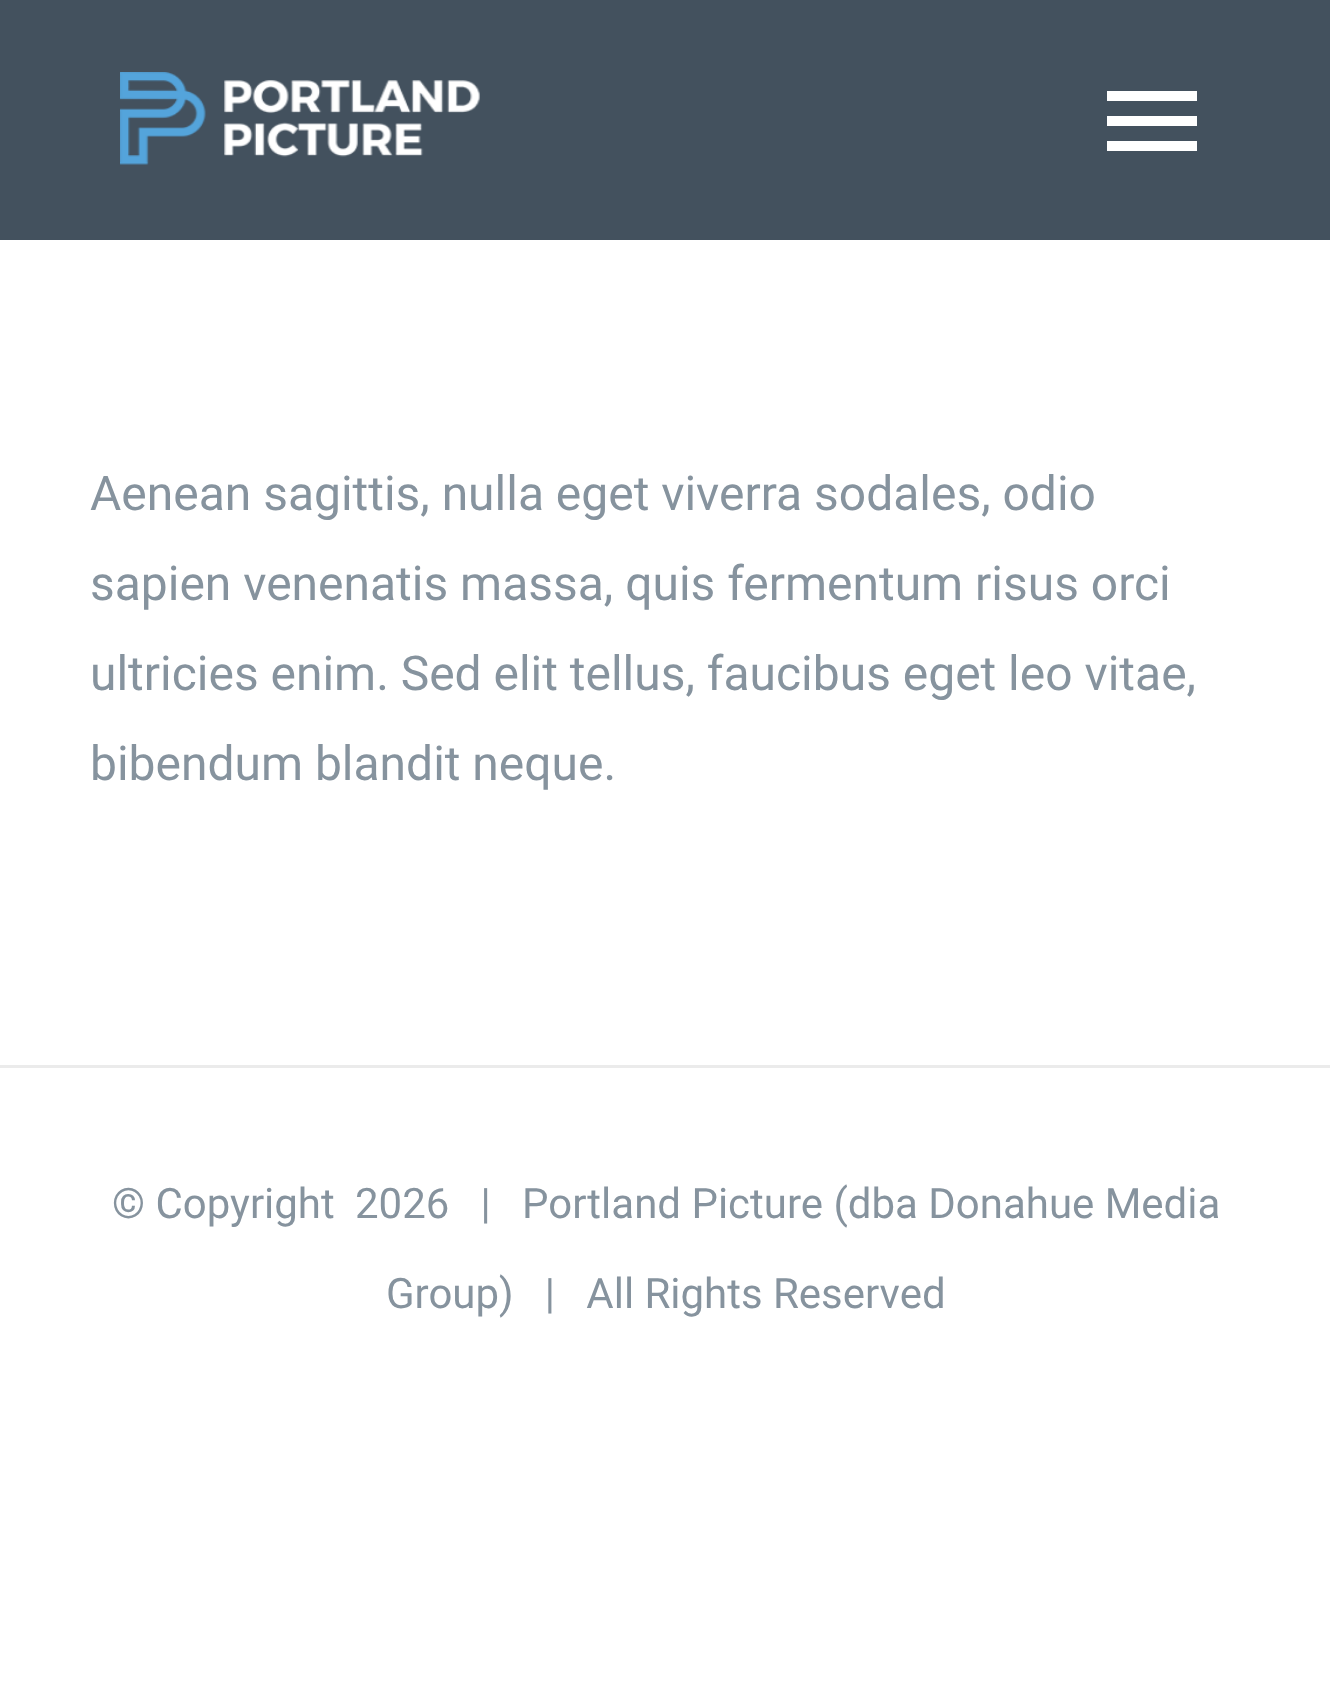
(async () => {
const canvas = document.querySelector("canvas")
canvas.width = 1330
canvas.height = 1690
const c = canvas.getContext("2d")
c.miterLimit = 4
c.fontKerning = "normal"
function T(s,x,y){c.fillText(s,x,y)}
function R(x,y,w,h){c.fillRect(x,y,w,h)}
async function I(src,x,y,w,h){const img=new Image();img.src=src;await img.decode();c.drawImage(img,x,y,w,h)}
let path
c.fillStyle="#fff"
R(0,0,1330,1690)
c.fillStyle="#43515e"
R(0,0,1330,240)
await I("1.png",120,72,360,93)
c.fillStyle="#fff"
path = new Path2D("M1107 91h90v10h-90zm0 35v-10h90v10zm0 25v-10h90v10z")
c.fill(path)
c.font="48px Roboto"
c.fillStyle="#86939e"
T("Aenean sagittis, nulla eget viverra sodales, odio",90,510)
T("sapien venenatis massa, quis fermentum risus orci",90,600)
T("ultricies enim. Sed elit tellus, faucibus eget leo vitae,",90,690)
T("bibendum blandit neque.",90,780)
c.fillStyle="#ebebeb"
R(0,1065,1330,3)
c.font="42px Roboto"
c.fillStyle="#86939e"
T("© Copyright",112,1218)
T("2026   |   Portland Picture (dba Donahue Media",355,1218)
T("Group)   |   All Rights Reserved",386,1308)
})()
